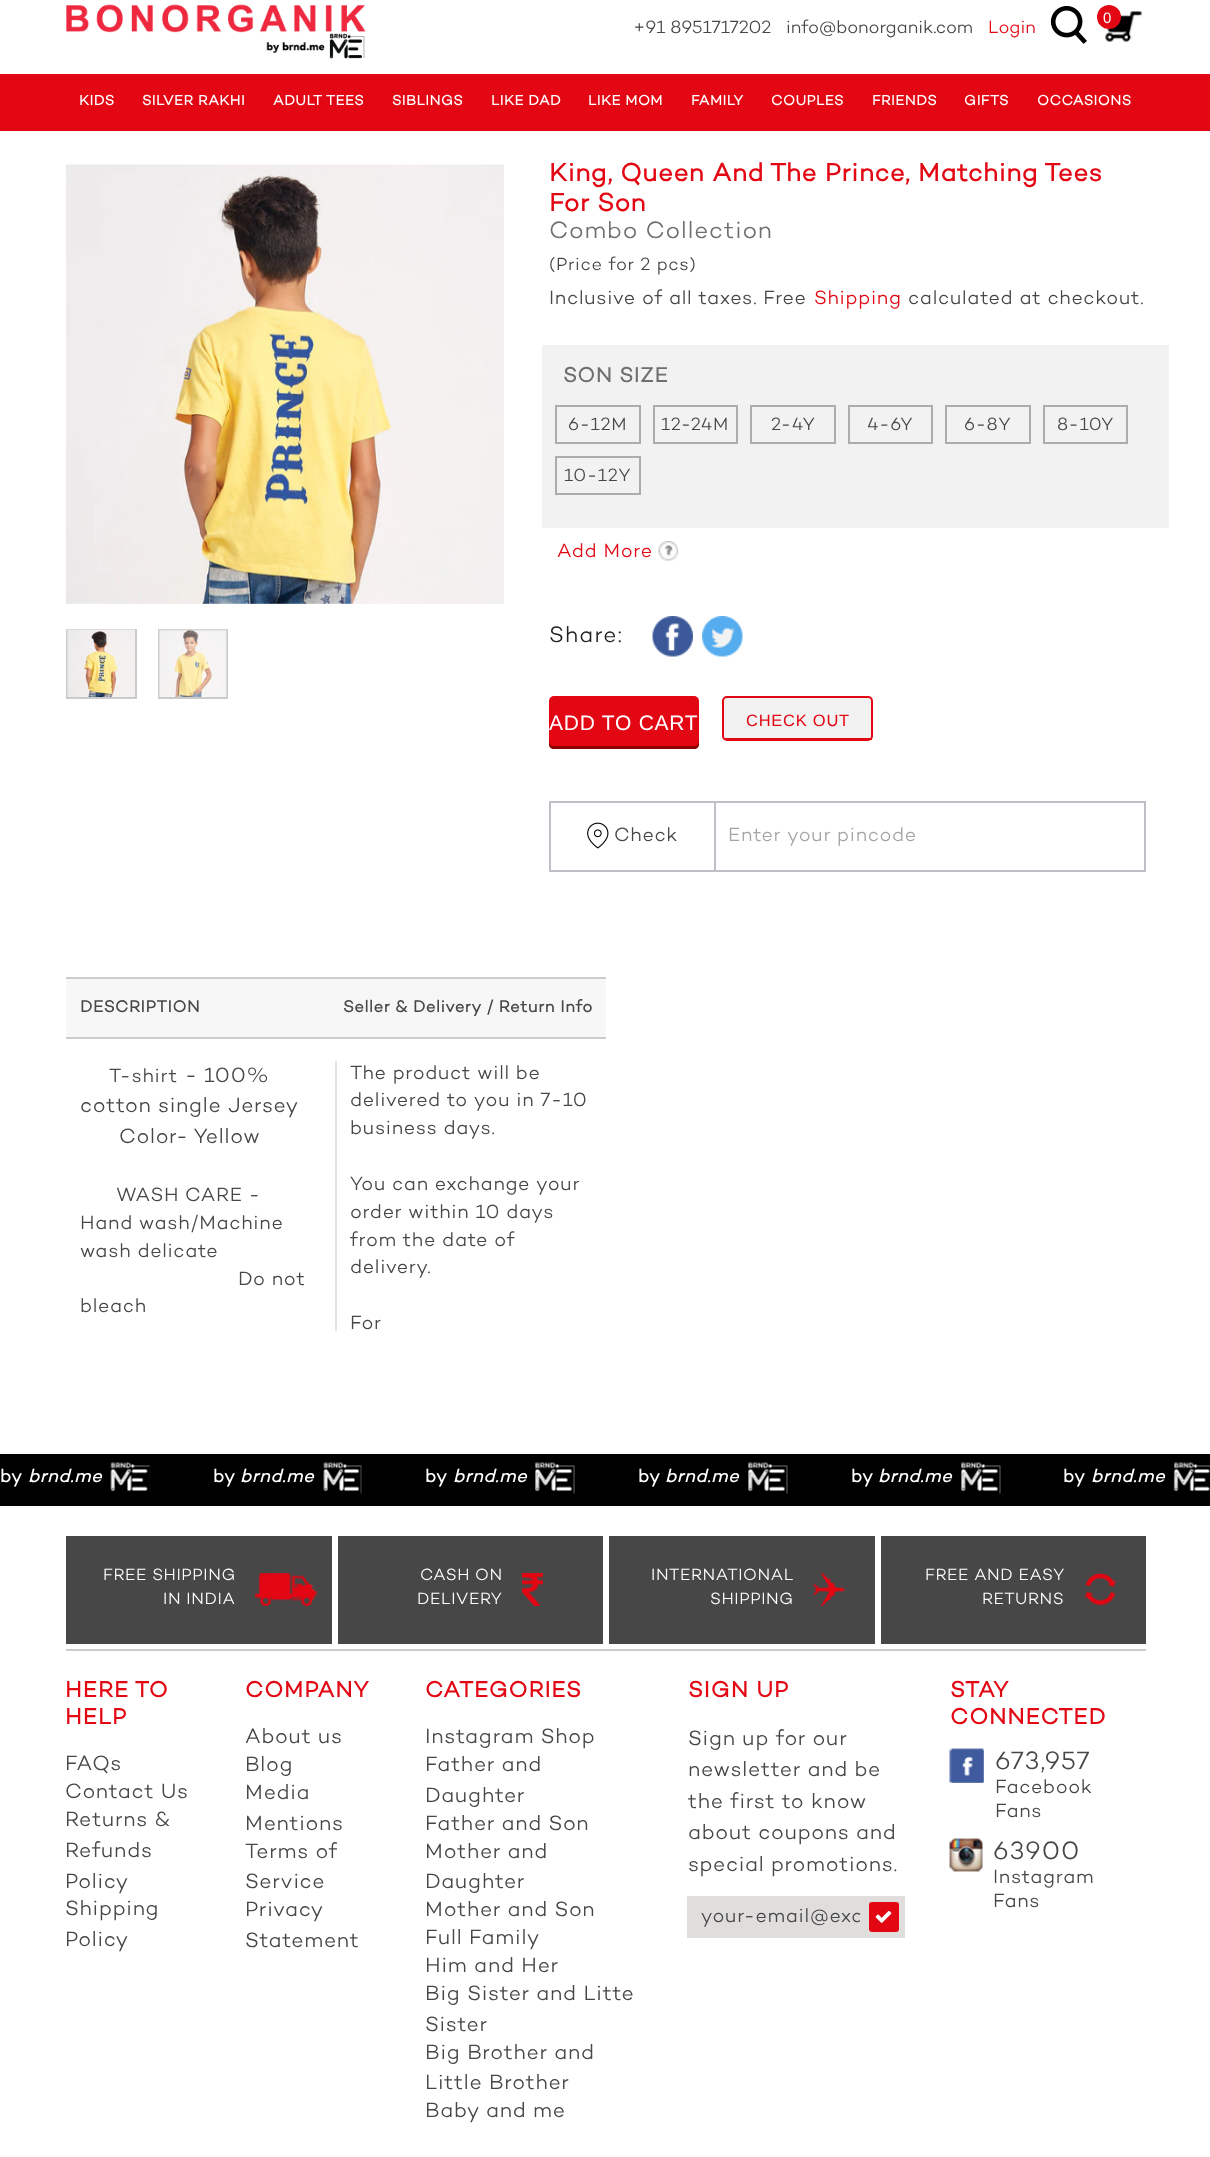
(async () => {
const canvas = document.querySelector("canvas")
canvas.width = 1210
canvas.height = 2157
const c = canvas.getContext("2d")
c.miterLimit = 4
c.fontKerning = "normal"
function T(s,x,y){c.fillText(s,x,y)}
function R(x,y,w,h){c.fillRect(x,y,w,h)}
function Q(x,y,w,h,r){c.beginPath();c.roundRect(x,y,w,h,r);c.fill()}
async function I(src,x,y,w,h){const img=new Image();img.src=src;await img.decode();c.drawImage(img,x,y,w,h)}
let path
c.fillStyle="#fff"
R(0,0,1210,2157)
await I("1.png",66,4,300,55)
c.font="18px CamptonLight"
c.fillStyle="#474747"
T("+91 8951717202",633,33)
T("info@bonorganik.com",786,33)
c.fillStyle="#e30613"
T("Login",988,33)
await I("2.png",1050,6,37,38)
await I("3.png",1105,11,37,31)
c.beginPath()
c.arc(1109,17,12,0,7)
c.fill()
c.letterSpacing="0.6px"
c.font="15px Liberation Sans"
c.fillStyle="#fff"
T("0",1103,23)
c.fillStyle="#e30613"
R(0,74,1210,57)
c.letterSpacing="0.5px"
c.font="bold 14.25px CamptonLight"
c.fillStyle="#fff"
T("KIDS",79,105)
T("SILVER RAKHI",142,105)
T("ADULT TEES",273,105)
T("SIBLINGS",392,105)
T("LIKE DAD",491,105)
T("LIKE MOM",588,105)
T("FAMILY",691,105)
T("COUPLES",771,105)
T("FRIENDS",872,105)
T("GIFTS",964,105)
T("OCCASIONS",1037,105)
await I("4.png",66,164,438,440)
c.strokeStyle="#cbcbcb"
c.lineWidth=2
c.strokeRect(67,630,69,68)
await I("5.png",67,629,68,68)
c.strokeRect(159,630,68,68)
await I("6.png",159,629,68,68)
c.letterSpacing="0.75px"
c.font="bold 25.5px CamptonLight"
c.fillStyle="#e30613"
T("King, Queen And The Prince, Matching Tees",549,181)
T("For Son",549,211)
c.letterSpacing="1px"
c.font="24px CamptonLight"
c.fillStyle="#6f6f6f"
T("Combo Collection",549,238)
c.letterSpacing="0.75px"
c.font="18px CamptonLight"
c.fillStyle="#474747"
T("(Price for 2 pcs)",549,270)
c.font="19.5px CamptonLight"
T("Inclusive of all taxes. Free",549,304)
c.fillStyle="#e30613"
T("Shipping",814,304)
c.fillStyle="#474747"
T("calculated at checkout.",908,304)
c.fillStyle="#f2f2f2"
R(542,345,627,183)
c.letterSpacing="0.8px"
c.font="bold 21px CamptonLight"
c.fillStyle="#6f6f6f"
T("SON SIZE",563,382)
c.strokeStyle="#acacac"
c.strokeRect(556,406,84,37)
c.letterSpacing="0.75px"
c.font="18px CamptonLight"
c.fillStyle="#474747"
T("6-12M",568,430)
c.strokeRect(654,406,83,37)
T("12-24M",661,430)
c.strokeRect(751,406,84,37)
T("2-4Y",771,430)
c.strokeRect(849,406,83,37)
T("4-6Y",867,430)
c.strokeRect(946,406,84,37)
T("6-8Y",964,430)
c.strokeRect(1044,406,83,37)
T("8-10Y",1057,430)
c.strokeRect(556,457,84,37)
T("10-12Y",564,481)
c.font="19.5px CamptonLight"
c.fillStyle="#e30613"
T("Add More",557,557)
await I("7.png",658,541,20,20)
c.letterSpacing="1.25px"
c.font="22.5px CamptonLight"
c.fillStyle="#232323"
T("Share:",549,642)
await I("8.png",652,616,41,41)
await I("9.png",702,616,41,41)
c.fillStyle="#e30613"
Q(549,696,150,53,5)
c.fillStyle="#8f0300"
path = new Path2D("M549 741v3c0 3 2 5 5 5h140c3 0 5-2 5-5v-3c0 2-2 5-5 5h-140c-3 0-5-3-5-5z")
c.fill(path)
c.letterSpacing="0.75px"
c.font="21px Liberation Sans"
c.fillStyle="#fff"
T("ADD TO CART",549,730)
c.fillStyle="#f2f2f2"
path = new Path2D("M726 698h142c2 0 4 1 4 2v36c0 1-2 2-4 2h-142c-2 0-3-1-3-2v-36c0-1 1-2 3-2z")
c.fill(path)
c.beginPath()
c.roundRect(723,697,149,43,4)
c.strokeStyle="#e30613"
c.stroke()
c.fillStyle="#e30613"
R(725,738,147,2)
c.font="16.5px Liberation Sans"
T("CHECK OUT",746,726)
c.strokeStyle="#bfc0c6"
c.strokeRect(550,802,595,69)
c.fillStyle="#bfc0c6"
R(714,803,2,67)
await I("10.png",587,822,22,27)
c.font="19.5px CamptonLight"
c.fillStyle="#474747"
T("Check",614,841)
c.fillStyle="#a6a6a6"
T("Enter your pincode",728,841)
c.fillStyle="#f7f7f7"
R(66,979,540,58)
c.fillStyle="#cbcbcb"
R(66,977,540,2)
R(66,1037,540,2)
c.letterSpacing="0.65px"
c.font="bold 16.5px CamptonLight"
c.fillStyle="#474747"
T("DESCRIPTION",80,1012)
c.fillStyle="#e4e4e4"
R(335,1061,2,270)
c.letterSpacing="0.75px"
c.font="19.5px CamptonLight"
c.fillStyle="#474747"
T("T-shirt",109,1082)
c.letterSpacing="0.8px"
c.font="21px CamptonLight"
T("- 100%",185,1082)
T("cotton single Jersey",80,1112)
T("Color- Yellow",119,1143)
c.letterSpacing="0.75px"
c.font="19.5px CamptonLight"
T("WASH CARE -",116,1201)
T("Hand wash/Machine",80,1229)
T("wash delicate",80,1257)
T("Do not",238,1285)
T("bleach",80,1312)
c.letterSpacing="0.65px"
c.font="bold 16.5px CamptonLight"
T("Seller & Delivery / Return Info",343,1012)
c.letterSpacing="0.75px"
c.font="19.5px CamptonLight"
T("The product will be",350,1079)
T("delivered to you in 7-10",350,1106)
T("business days.",350,1134)
T("You can exchange your",350,1190)
T("order within 10 days",350,1218)
T("from the date of",350,1246)
T("delivery.",350,1273)
T("For",350,1329)
c.fillStyle="#000"
R(0,1454,1210,52)
c.font="bold 18px CamptonLight"
c.fillStyle="#fff"
T("by",0,1482)
c.font="italic bold 18px CamptonLight"
T("brnd.me",28,1482)
await I("11.png",110,1462,41,31)
c.font="bold 18px CamptonLight"
T("by",213,1482)
c.font="italic bold 18px CamptonLight"
T("brnd.me",240,1482)
await I("12.png",323,1462,39,32)
c.font="bold 18px CamptonLight"
T("by",425,1482)
c.font="italic bold 18px CamptonLight"
T("brnd.me",453,1482)
await I("13.png",535,1462,40,32)
c.font="bold 18px CamptonLight"
T("by",638,1482)
c.font="italic bold 18px CamptonLight"
T("brnd.me",665,1482)
await I("13.png",748,1462,40,32)
c.font="bold 18px CamptonLight"
T("by",851,1482)
c.font="italic bold 18px CamptonLight"
T("brnd.me",878,1482)
await I("14.png",961,1462,40,32)
c.font="bold 18px CamptonLight"
T("by",1063,1482)
c.font="italic bold 18px CamptonLight"
T("brnd.me",1091,1482)
await I("15.png",1173,1462,37,30)
c.fillStyle="#cbcbcb"
R(66,1649,1080,2)
c.fillStyle="#474747"
R(66,1536,266,108)
c.letterSpacing="0.6px"
c.font="16.5px CamptonLight"
c.fillStyle="#fff"
T("FREE SHIPPING",103,1580)
T("IN INDIA",163,1604)
await I("16.png",255,1573,62,33)
c.fillStyle="#474747"
R(338,1536,265,108)
c.fillStyle="#fff"
T("CASH ON",420,1580)
T("DELIVERY",417,1604)
await I("17.png",522,1573,21,33)
c.fillStyle="#474747"
R(609,1536,266,108)
c.fillStyle="#fff"
T("INTERNATIONAL",651,1580)
T("SHIPPING",710,1604)
await I("18.png",813,1573,32,33)
c.fillStyle="#474747"
R(881,1536,265,108)
c.fillStyle="#fff"
T("FREE AND EASY",925,1580)
T("RETURNS",982,1604)
await I("19.png",1084,1573,32,33)
c.letterSpacing="1px"
c.font="bold 22.5px CamptonLight"
c.fillStyle="#e30613"
T("HERE TO",65,1697)
T("HELP",65,1724)
c.letterSpacing="0.8px"
c.font="21px CamptonLight"
c.fillStyle="#474747"
T("FAQs",65,1770)
T("Contact Us",65,1798)
T("Returns &",65,1826)
T("Refunds",65,1857)
T("Policy",65,1888)
T("Shipping",65,1915)
T("Policy",65,1946)
c.letterSpacing="1px"
c.font="bold 22.5px CamptonLight"
c.fillStyle="#e30613"
T("COMPANY",245,1697)
c.letterSpacing="0.8px"
c.font="21px CamptonLight"
c.fillStyle="#474747"
T("About us",245,1743)
T("Blog",245,1771)
T("Media",245,1799)
T("Mentions",245,1830)
T("Terms of",245,1858)
T("Service",245,1888)
T("Privacy",245,1916)
T("Statement",245,1947)
c.letterSpacing="1px"
c.font="bold 22.5px CamptonLight"
c.fillStyle="#e30613"
T("CATEGORIES",425,1697)
c.letterSpacing="0.8px"
c.font="21px CamptonLight"
c.fillStyle="#474747"
T("Instagram Shop",425,1743)
T("Father and",425,1771)
T("Daughter",425,1802)
T("Father and Son",425,1830)
T("Mother and",425,1858)
T("Daughter",425,1888)
T("Mother and Son",425,1916)
T("Full Family",425,1944)
T("Him and Her",425,1972)
T("Big Sister and Litte",425,2000)
T("Sister",425,2031)
T("Big Brother and",425,2059)
T("Little Brother",425,2089)
T("Baby and me",425,2117)
c.letterSpacing="1px"
c.font="bold 22.5px CamptonLight"
c.fillStyle="#e30613"
T("SIGN UP",688,1697)
c.letterSpacing="0.8px"
c.font="21px CamptonLight"
c.fillStyle="#474747"
T("Sign up for our",688,1745)
T("newsletter and be",688,1776)
T("the first to know",688,1808)
T("about coupons and",688,1839)
T("special promotions.",688,1871)
c.fillStyle="#e0dddd"
R(687,1896,218,42)
c.save()
c.beginPath()
c.rect(701,1905,159,24)
c.clip()
c.letterSpacing="0.75px"
c.font="19.5px CamptonLight"
c.fillStyle="#474747"
T("your-email@exa",701,1922)
c.restore()
c.fillStyle="#e30613"
Q(869,1902,30,30,3)
await I("20.png",875,1911,17,12)
c.letterSpacing="1px"
c.font="bold 22.5px CamptonLight"
T("STAY",950,1697)
T("CONNECTED",950,1724)
await I("21.png",949,1748,35,35)
c.font="25.5px CamptonLight"
c.fillStyle="#474747"
T("673,957",995,1769)
c.letterSpacing="0.75px"
c.font="19.5px CamptonLight"
T("Facebook",995,1793)
T("Fans",995,1817)
await I("22.png",949,1838,34,34)
c.letterSpacing="1px"
c.font="25.5px CamptonLight"
T("63900",993,1859)
c.letterSpacing="0.75px"
c.font="19.5px CamptonLight"
T("Instagram",993,1883)
T("Fans",993,1907)
})()
